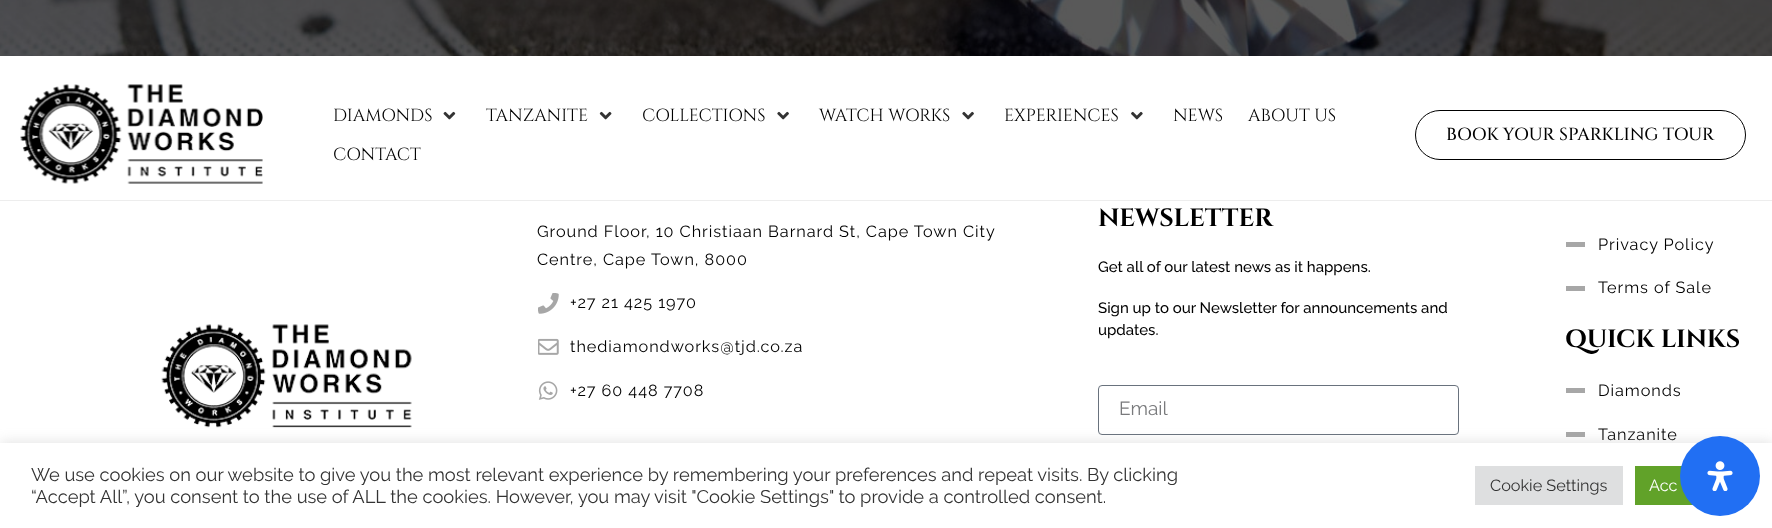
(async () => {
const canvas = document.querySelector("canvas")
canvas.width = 1772
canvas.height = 528
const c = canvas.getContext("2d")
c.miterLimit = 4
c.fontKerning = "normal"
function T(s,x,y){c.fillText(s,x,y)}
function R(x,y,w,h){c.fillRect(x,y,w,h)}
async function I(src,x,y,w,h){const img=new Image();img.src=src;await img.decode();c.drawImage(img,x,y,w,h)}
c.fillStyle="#fff"
R(0,0,1772,528)
c.fillStyle="#ededed"
R(0,200,1772,1)
await I("1.png",20,84,243,100)
c.font="17.5px Cinzel"
c.fillStyle="#000"
T("DIAMONDS",333,121)
await I("2.png",443,111,13,9)
T("TANZANITE",486,121)
await I("3.png",599,111,13,9)
T("COLLECTIONS",642,121)
await I("4.png",777,111,12,9)
T("WATCH WORKS",819,121)
await I("4.png",962,111,12,9)
T("EXPERIENCES",1004,121)
await I("5.png",1131,111,12,9)
T("NEWS",1173,121)
T("ABOUT US",1248,121)
T("CONTACT",333,160)
c.beginPath()
c.roundRect(1415.5,110.5,330,49,24.5)
c.strokeStyle="#000"
c.stroke()
c.font="500 17.5px Cinzel"
T("BOOK YOUR SPARKLING TOUR",1446,140)
await I("6.png",0,0,1772,56)
await I("7.png",161,324,251,104)
c.letterSpacing="0.95px"
c.font="16.25px Raleway"
T("Ground Floor, 10 Christiaan Barnard St, Cape Town City",537,237)
T("Centre, Cape Town, 8000",537,265)
await I("8.png",538,293,21,21)
T("+27 21 425 1970",570,308)
await I("9.png",538,338,21,17)
T("thediamondworks@tjd.co.za",570,352)
await I("10.png",538,381,20,19)
T("+27 60 448 7708",570,396)
c.letterSpacing="0px"
c.font="bold 25px Cinzel"
T("NEWSLETTER",1098,226)
c.font="500 15px Raleway"
T("Get all of our latest news as it happens.",1098,272)
T("Sign up to our Newsletter for announcements and",1098,313)
T("updates.",1098,335)
c.beginPath()
c.roundRect(1098.5,385.5,360,49,3.5)
c.strokeStyle="#69727d"
c.stroke()
c.font="19px Raleway"
c.fillStyle="#797a7c"
T("Email",1119,415)
c.fillStyle="#a7a7a7"
R(1566,242,19,5)
c.letterSpacing="0.95px"
c.font="16.25px Raleway"
c.fillStyle="#000"
T("Privacy Policy",1598,250)
c.fillStyle="#a7a7a7"
R(1566,286,19,5)
c.fillStyle="#000"
T("Terms of Sale",1598,293)
c.letterSpacing="0px"
c.font="bold 25px Cinzel"
T("QUICK LINKS",1565,347)
c.fillStyle="#a7a7a7"
R(1566,388,19,5)
c.letterSpacing="0.95px"
c.font="16.25px Raleway"
c.fillStyle="#000"
T("Diamonds",1598,396)
c.fillStyle="#a7a7a7"
R(1566,432,19,5)
c.fillStyle="#000"
T("Tanzanite",1598,440)
c.fillStyle="#acabab4d"
c.filter="blur(6px)"
c.beginPath()
c.rect(0,441,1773,87)
c.fill()
c.filter="none"
c.fillStyle="#fff"
R(0,443,1772,85)
c.letterSpacing="0px"
c.font="18.33px Raleway"
c.fillStyle="#333"
T("We use cookies on our website to give you the most relevant experience by remembering your preferences and repeat visits. By clicking",31,481)
T("“Accept All”, you consent to the use of ALL the cookies. However, you may visit \"Cookie Settings\" to provide a controlled consent.",31,503)
c.fillStyle="#dedfe0"
R(1475,466,148,39)
c.font="16.25px Raleway"
c.fillStyle="#333"
T("Cookie Settings",1490,491)
c.fillStyle="#61a229"
R(1635,466,58,39)
c.fillStyle="#fff"
T("Acc",1649,491)
c.fillStyle="#216ff3"
c.beginPath()
c.arc(1720,476,40,0,7)
c.fill()
await I("11.png",1707,461,26,30)
})()
